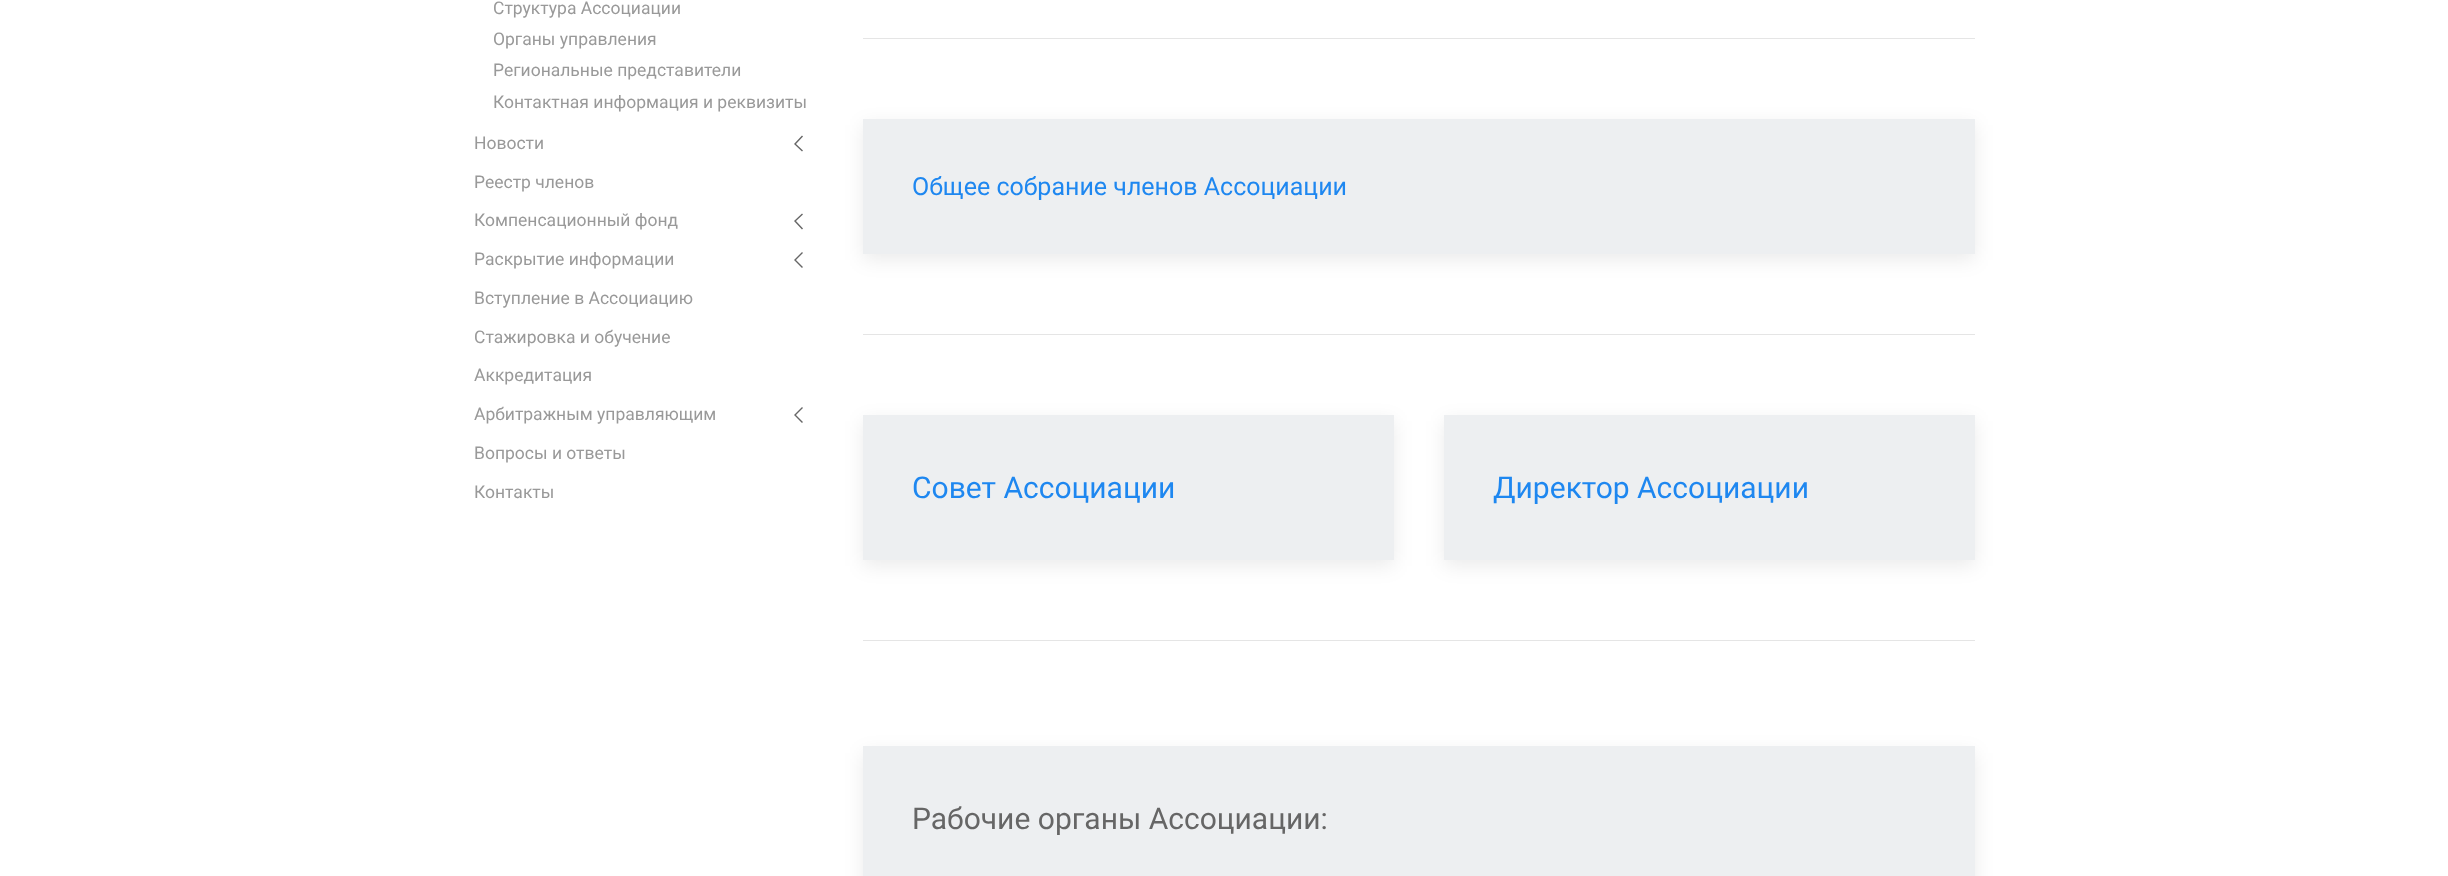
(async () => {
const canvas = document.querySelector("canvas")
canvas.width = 2448
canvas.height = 876
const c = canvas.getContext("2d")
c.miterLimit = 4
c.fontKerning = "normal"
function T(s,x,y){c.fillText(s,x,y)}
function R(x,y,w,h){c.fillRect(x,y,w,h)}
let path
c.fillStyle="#fff"
R(0,0,2448,876)
c.font="17.5px Roboto"
c.fillStyle="#999"
T("Структура Ассоциации",493,14)
T("Органы управления",493,45)
T("Региональные представители",493,76)
T("Контактная информация и реквизиты",493,108)
T("Новости",474,149)
path = new Path2D("M802.5 136l-7.5 8l7.5 7")
c.strokeStyle="#666"
c.lineWidth=1.4
c.stroke(path)
T("Реестр членов",474,188)
T("Компенсационный фонд",474,226)
path = new Path2D("M802.5 214l-7.5 7l7.5 8m0 23.5l-7.5 7.5l7.5 7.5")
c.stroke(path)
T("Раскрытие информации",474,265)
T("Вступление в Ассоциацию",474,304)
T("Стажировка и обучение",474,343)
T("Аккредитация",474,381)
T("Арбитражным управляющим",474,420)
path = new Path2D("M802.5 407.5l-7.5 7.5l7.5 7.5")
c.stroke(path)
T("Вопросы и ответы",474,459)
T("Контакты",474,498)
c.fillStyle="#e5e5e5"
R(863,38,1112,1)
c.fillStyle="#00000014"
c.filter="blur(9.5px)"
c.beginPath()
c.rect(863,125,1112,135)
c.fill()
c.filter="none"
c.fillStyle="#edeff1"
R(863,119,1112,135)
c.font="25px Roboto"
c.fillStyle="#1e87f0"
T("Общее собрание членов Ассоциации",912,195)
c.fillStyle="#e5e5e5"
R(863,334,1112,1)
c.fillStyle="#00000014"
c.filter="blur(9.5px)"
c.beginPath()
c.rect(863,421,531,145)
c.fill()
c.filter="none"
c.fillStyle="#edeff1"
R(863,415,531,145)
c.font="30px Roboto"
c.fillStyle="#1e87f0"
T("Совет Ассоциации",912,498)
c.fillStyle="#00000014"
c.filter="blur(9.5px)"
c.beginPath()
c.rect(1444,421,531,145)
c.fill()
c.filter="none"
c.fillStyle="#edeff1"
R(1444,415,531,145)
c.fillStyle="#1e87f0"
T("Директор Ассоциации",1493,498)
c.fillStyle="#e5e5e5"
R(863,640,1112,1)
c.fillStyle="#00000014"
c.filter="blur(9.5px)"
c.beginPath()
c.rect(863,753,1112,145)
c.fill()
c.filter="none"
c.fillStyle="#edeff1"
R(863,746,1112,130)
c.fillStyle="#666"
T("Рабочие органы Ассоциации:",912,829)
})()
